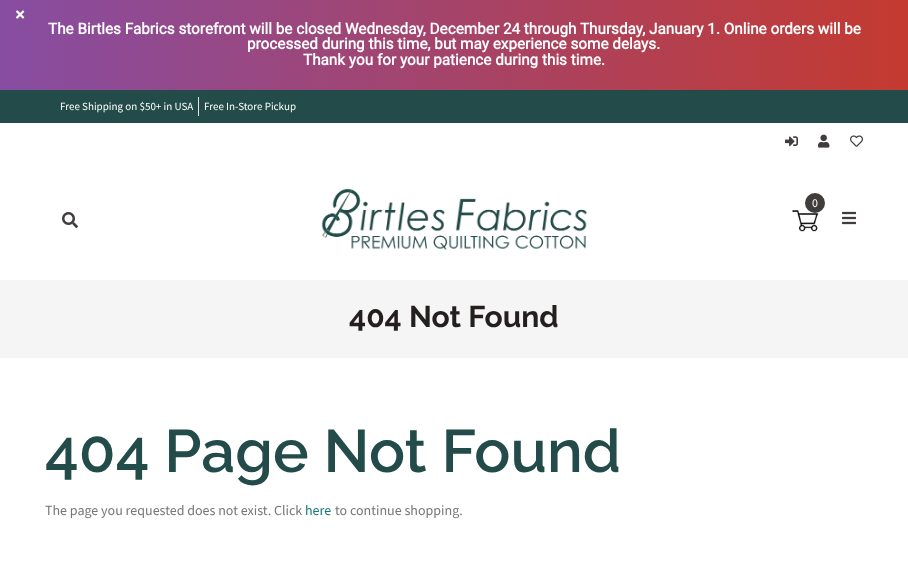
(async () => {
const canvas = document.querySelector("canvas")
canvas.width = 908
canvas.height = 564
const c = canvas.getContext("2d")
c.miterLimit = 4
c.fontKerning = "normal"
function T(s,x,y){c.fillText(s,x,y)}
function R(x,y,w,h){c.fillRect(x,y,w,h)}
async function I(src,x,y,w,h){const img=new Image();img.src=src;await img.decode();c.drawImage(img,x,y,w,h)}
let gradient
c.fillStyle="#fff"
R(0,0,908,564)
gradient = c.createLinearGradient(0,45,908,45)
gradient.addColorStop(0,"#874da2")
gradient.addColorStop(1,"#c43a30")
c.fillStyle = gradient
R(0,0,908,90)
c.font="bold 15.3px Roboto"
c.fillStyle="#fff"
T("The Birtles Fabrics storefront will be closed Wednesday, December 24 through Thursday, January 1. Online orders will be",48,34)
T("processed during this time, but may experience some delays.",247,49)
T("Thank you for your patience during this time.",303,65)
c.fillStyle="#224b49"
R(0,90,908,33)
await I("1.png",16,10,9,9)
c.fillStyle="#e4e4e4"
R(198,97,1,19)
c.font="11px Source Sans Pro"
c.fillStyle="#fff"
T("Free Shipping on $50+ in USA",60,110)
T("Free In-Store Pickup",204,110)
await I("2.png",785,136,13,11)
await I("3.png",818,134,12,14)
await I("4.png",850,135,13,12)
await I("5.png",321,187,267,63)
await I("6.png",792,210,27,22)
c.fillStyle="#413d3c"
c.beginPath()
c.arc(815,203,10,0,7)
c.fill()
c.font="12px Source Sans Pro"
c.fillStyle="#fff"
T("0",812,207)
await I("7.png",842,211,14,14)
await I("8.png",62,212,16,16)
c.fillStyle="#f5f5f5"
R(0,280,908,78)
c.font="bold 30px Raleway"
c.fillStyle="#231f1e"
T("404 Not Found",349,327)
c.font="600 60px Raleway"
c.fillStyle="#224b49"
T("404 Page Not Found",45,472)
c.font="14px Source Sans Pro"
c.fillStyle="#777"
T("The page you requested does not exist. Click",45,515)
c.fillStyle="#167878"
T("here",305,515)
c.fillStyle="#777"
T("to continue shopping.",335,515)
})()
